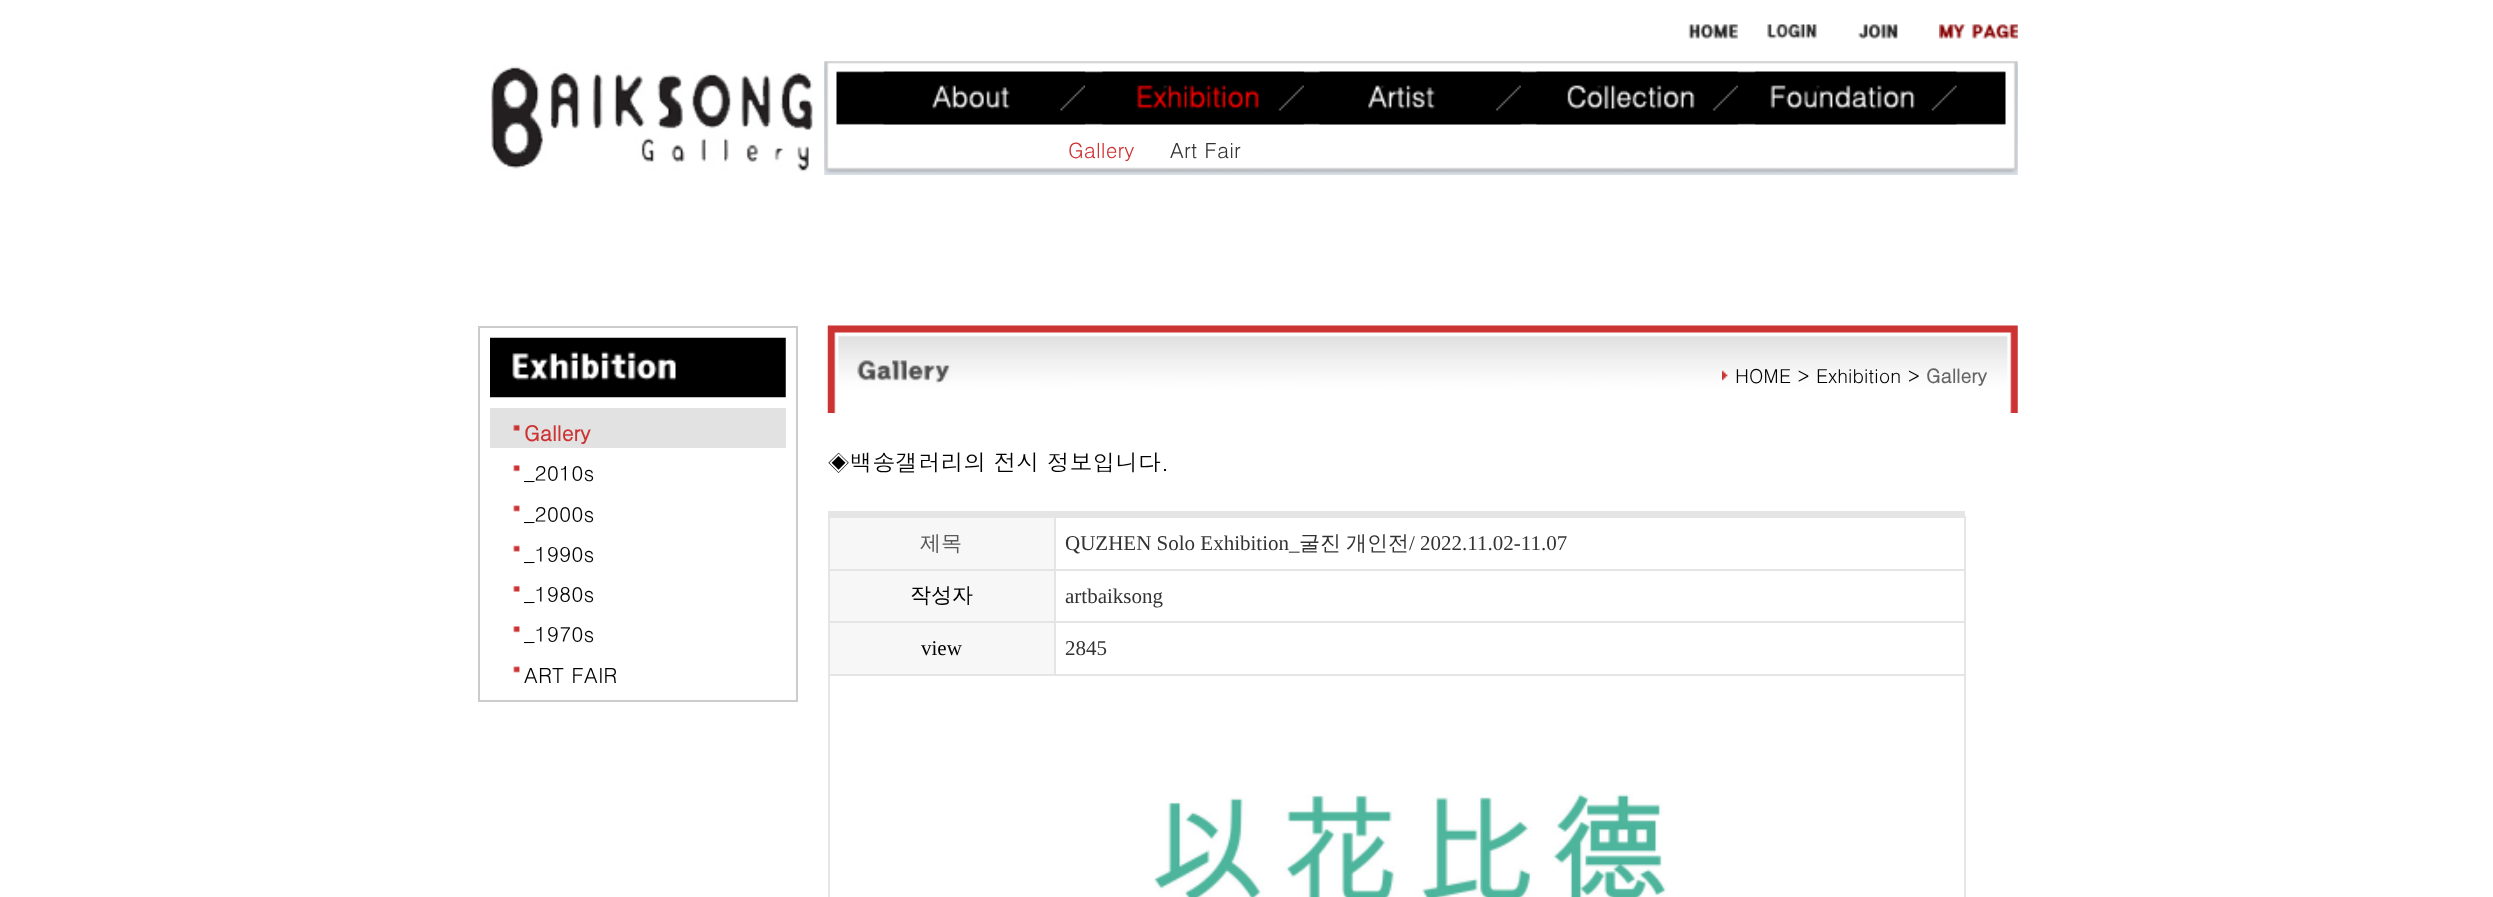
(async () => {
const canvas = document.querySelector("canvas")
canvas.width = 2493
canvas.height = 897
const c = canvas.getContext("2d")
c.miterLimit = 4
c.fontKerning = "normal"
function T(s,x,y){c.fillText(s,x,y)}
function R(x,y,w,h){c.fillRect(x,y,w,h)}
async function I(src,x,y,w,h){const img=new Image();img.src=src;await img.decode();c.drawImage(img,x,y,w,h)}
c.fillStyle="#fff"
R(0,0,2493,897)
await I("1.png",1688,24,50,15)
await I("2.png",1767,24,50,15)
await I("3.png",1858,24,40,15)
await I("4.png",1939,24,79,15)
await I("5.png",491,66,322,106)
await I("6.png",824,61,1194,114)
await I("7.png",883,71,202,54)
await I("8.png",1102,71,202,54)
await I("9.png",1319,71,202,54)
await I("10.png",1536,71,202,54)
await I("11.png",1755,71,202,54)
c.font="21px Dotum"
c.fillStyle="#c33"
T("Gallery",1068,158)
c.fillStyle="#333"
T("Art Fair",1170,158)
c.strokeStyle="#ccc"
c.lineWidth=2
c.strokeRect(479,327,318,374)
await I("12.png",490,337,296,61)
c.fillStyle="#e2e2e2"
R(490,408,296,40)
await I("13.png",513,424,7,7)
c.font="bold 21px Dotum"
c.fillStyle="#c33"
T("Gallery",524,441)
await I("14.png",513,465,7,7)
c.font="21px Dotum"
c.fillStyle="#000"
T("_2010s",524,481)
await I("15.png",513,505,7,7)
T("_2000s",524,522)
await I("16.png",513,545,7,7)
T("_1990s",524,562)
await I("17.png",513,585,7,7)
T("_1980s",524,602)
await I("14.png",513,626,7,7)
T("_1970s",524,642)
await I("15.png",513,666,7,7)
T("ART FAIR",524,683)
await I("18.png",827,325,1191,88)
await I("19.png",857,360,94,24)
await I("20.png",1722,370,6,11)
c.font="19.25px Dotum"
T("HOME > Exhibition >",1735,383)
c.font="bold 19.25px Dotum"
c.fillStyle="#666"
T("Gallery",1926,383)
c.font="22.75px Dotum"
c.fillStyle="#000"
T("◈백송갤러리의 전시 정보입니다.",827,471)
c.fillStyle="#e5e5e5"
R(828,511,1137,7)
R(1964,516,2,381)
R(828,516,2,381)
c.fillStyle="#f7f7f7"
R(830,518,224,51)
c.font="500 21px WenQuanYi Zen Hei"
c.fillStyle="#595959"
T("제목",920,550)
c.fillStyle="#e5e5e5"
R(1054,569,911,2)
R(1054,621,911,2)
R(828,674,1137,2)
R(1054,621,2,55)
R(828,621,227,2)
R(1054,569,2,54)
R(828,569,227,2)
R(1054,516,2,55)
c.font="21px Liberation Serif"
c.fillStyle="#333"
T("QUZHEN Solo Exhibition_",1065,550)
c.font="500 21px WenQuanYi Zen Hei"
T("굴진",1299,550)
T("개인전",1346,550)
c.font="21px Liberation Serif"
T("/ 2022.11.02-11.07",1409,550)
c.fillStyle="#f7f7f7"
R(830,571,224,50)
c.font="500 21px WenQuanYi Zen Hei"
c.fillStyle="#000"
T("작성자",910,602)
c.font="21px Liberation Serif"
c.fillStyle="#333"
T("artbaiksong",1065,603)
c.fillStyle="#f7f7f7"
R(830,623,224,51)
c.fillStyle="#000"
T("view",921,655)
c.fillStyle="#333"
T("2845",1065,655)
await I("21.png",1154,794,513,103)
})()
